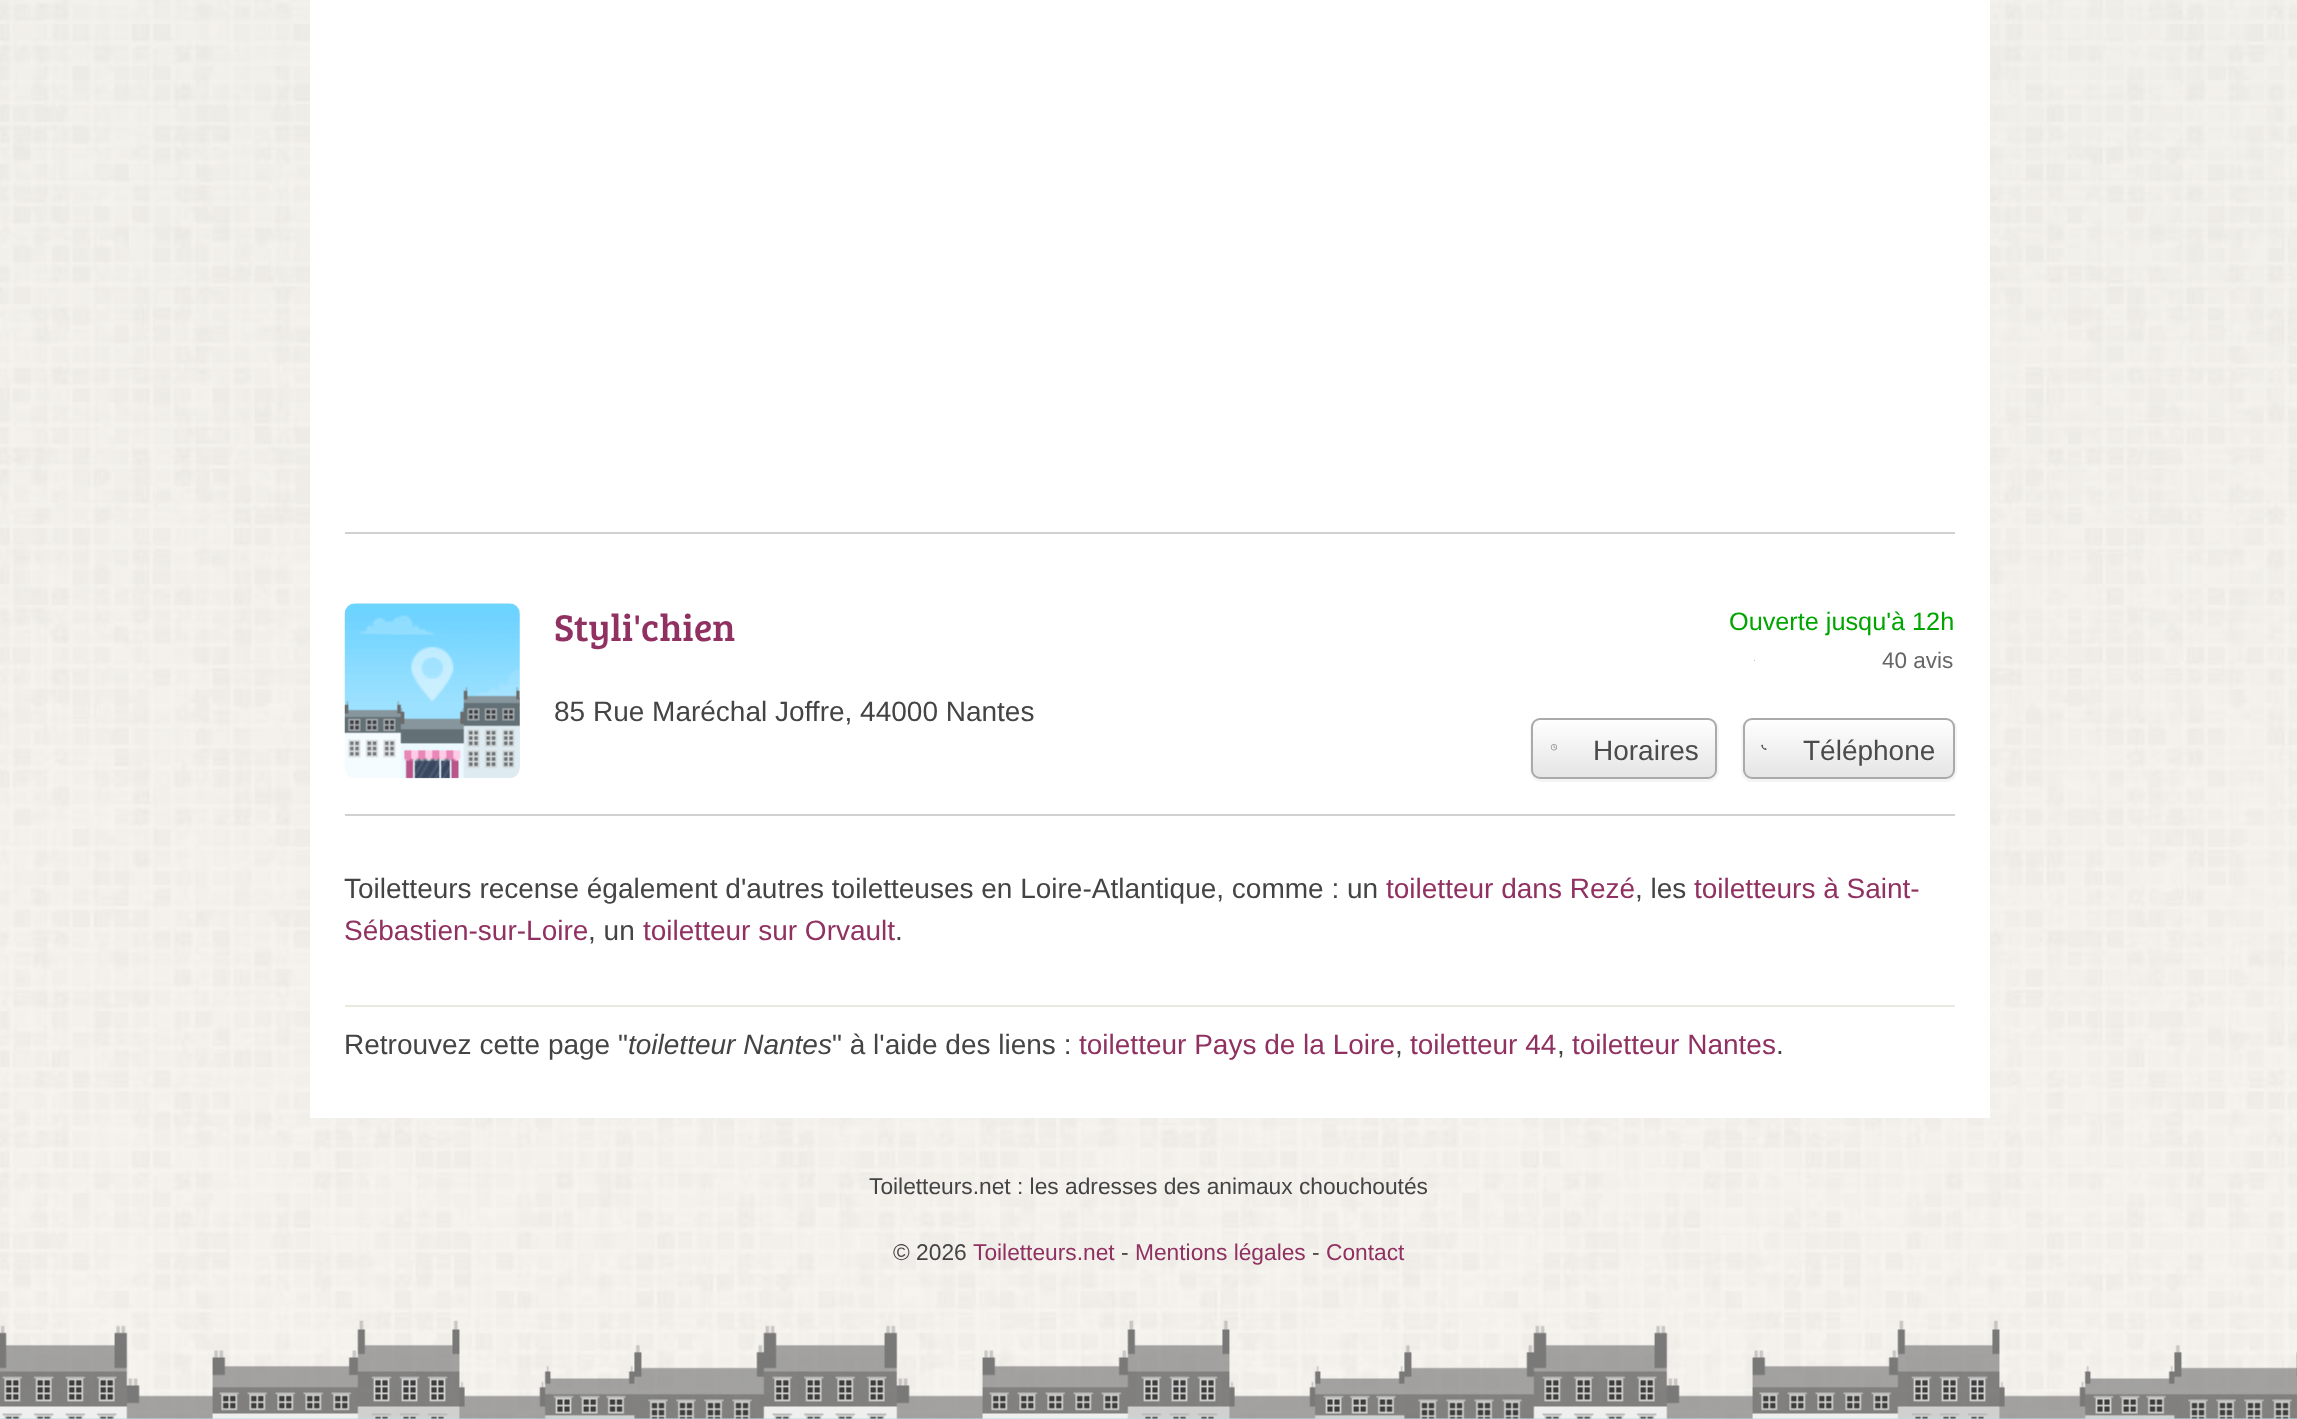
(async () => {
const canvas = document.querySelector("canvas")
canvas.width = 2297
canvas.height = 1419
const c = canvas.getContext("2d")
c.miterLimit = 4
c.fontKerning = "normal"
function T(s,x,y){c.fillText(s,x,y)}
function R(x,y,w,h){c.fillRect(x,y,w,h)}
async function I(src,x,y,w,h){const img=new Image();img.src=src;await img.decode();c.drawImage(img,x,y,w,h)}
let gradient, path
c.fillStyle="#fff"
R(0,0,2297,1419)
await I("1.png",0,1321,2297,98)
await I("2.png",0,0,2297,1321)
R(310,0,1680,1118)
c.fillStyle="#d1d1d1"
R(345,532,1610,2)
R(345,814,1610,2)
await I("3.png",344,603,176,176)
c.font="38.5px Bree Serif"
c.fillStyle="#903161"
T("Styli'chien",554,641)
c.font="25.25px Liberation Sans"
c.fillStyle="#00a500"
T("Ouverte jusqu'à 12h",1729,630)
c.fillStyle="#bfbfbf"
R(1754,660,1,1)
c.font="22.5px Liberation Sans"
c.fillStyle="#666"
T("40 avis",1882,668)
c.font="28px Liberation Sans"
c.fillStyle="#444"
T("85 Rue Maréchal Joffre, 44000 Nantes",554,721)
c.fillStyle="#f5f5f5"
path = new Path2D("M1532 723c-1 2-2 4-2 6v42c0 6 5 11 11 11h167c6 0 11-5 11-11v-42c0-4-2-7-5-9c2 2 3 4 3 6v44c0 5-4 9-9 9h-168c-5 0-9-4-9-9v-44z")
c.fill(path)
c.save()
c.beginPath()
c.roundRect(1531,718,186,61,9)
c.clip()
gradient = c.createLinearGradient(1624,719,1624,777)
gradient.addColorStop(0,"#fff")
gradient.addColorStop(1,"#e5e5e5")
c.fillStyle = gradient
R(1531,719,186,58)
c.restore()
c.beginPath()
c.roundRect(1532,719,184,59,8)
c.strokeStyle="#aaa"
c.lineWidth=2
c.stroke()
await I("4.png",1550,744,8,7)
c.fillStyle="#4b4b4b"
T("Horaires",1593,760)
c.fillStyle="#f5f5f5"
path = new Path2D("M1745 721c-3 2-4 5-4 8v42c0 6 5 11 11 11h194c6 0 11-5 11-11v-42c0-4-2-7-5-9c2 2 3 4 3 6v44c0 5-4 9-9 9h-195c-4 0-8-4-8-9v-44c0-2 1-4 2-5z")
c.fill(path)
c.save()
c.beginPath()
c.roundRect(1743,718,212,61,9)
c.clip()
gradient = c.createLinearGradient(1849,719,1849,777)
gradient.addColorStop(0,"#fff")
gradient.addColorStop(1,"#e5e5e5")
c.fillStyle = gradient
R(1743,719,212,58)
c.restore()
c.beginPath()
c.roundRect(1744,719,210,59,8)
c.stroke()
await I("5.png",1761,744,6,6)
c.fillStyle="#4b4b4b"
T("Téléphone",1803,760)
c.fillStyle="#eae9df"
R(345,1005,1610,2)
c.fillStyle="#444"
T("Toiletteurs recense également d'autres toiletteuses en Loire-Atlantique, comme : un",344,898)
c.fillStyle="#903161"
T("toiletteur dans Rezé",1386,898)
c.fillStyle="#444"
T(", les",1635,898)
c.fillStyle="#903161"
T("toiletteurs à Saint-",1694,898)
T("Sébastien-sur-Loire",344,940)
c.fillStyle="#444"
T(", un",588,940)
c.fillStyle="#903161"
T("toiletteur sur Orvault",643,940)
c.fillStyle="#444"
T(".",895,940)
T("Retrouvez cette page \"",344,1054)
c.font="italic 28px Liberation Sans"
T("toiletteur Nantes",628,1054)
c.font="28px Liberation Sans"
T("\" à l'aide des liens :",832,1054)
c.fillStyle="#903161"
T("toiletteur Pays de la Loire",1079,1054)
c.fillStyle="#444"
T(",",1395,1054)
c.fillStyle="#903161"
T("toiletteur 44",1410,1054)
c.fillStyle="#444"
T(",",1557,1054)
c.fillStyle="#903161"
T("toiletteur Nantes",1572,1054)
c.fillStyle="#444"
T(".",1776,1054)
c.font="22.75px Liberation Sans"
T("Toiletteurs.net : les adresses des animaux chouchoutés",869,1194)
T("© 2026",893,1260)
c.fillStyle="#903161"
T("Toiletteurs.net",973,1260)
c.fillStyle="#444"
T("-",1121,1260)
c.fillStyle="#903161"
T("Mentions légales",1135,1260)
c.fillStyle="#444"
T("-",1312,1260)
c.fillStyle="#903161"
T("Contact",1326,1260)
await I("6.png",0,1320,2297,99)
})()
